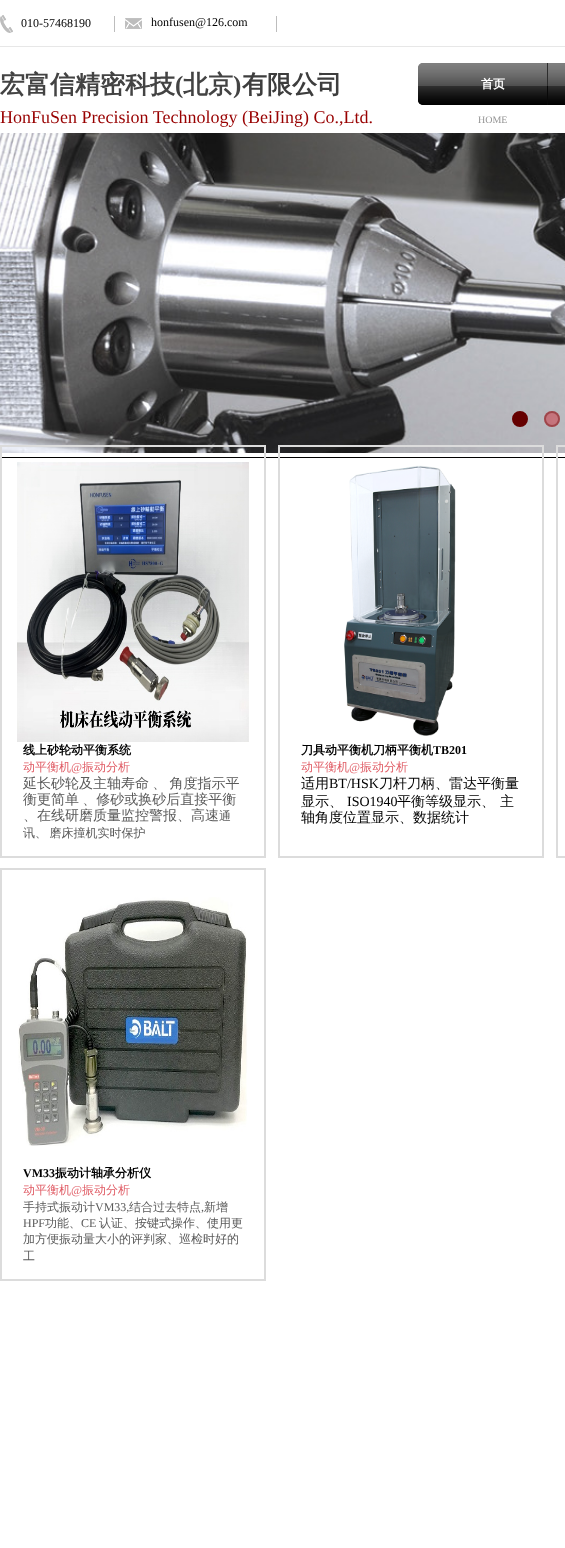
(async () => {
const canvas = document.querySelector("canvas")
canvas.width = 565
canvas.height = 1548
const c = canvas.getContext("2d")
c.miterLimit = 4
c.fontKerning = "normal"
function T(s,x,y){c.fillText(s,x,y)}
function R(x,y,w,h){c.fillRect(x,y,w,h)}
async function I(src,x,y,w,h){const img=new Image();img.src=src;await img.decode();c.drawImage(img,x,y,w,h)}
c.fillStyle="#fff"
R(0,0,565,1548)
await I("1.png",0,15,13,18)
c.font="12px Liberation Serif"
c.fillStyle="#000"
T("010-57468190",21,27)
c.fillStyle="#bdbdbd"
R(114,16,1,16)
await I("2.png",125,18,17,11)
c.fillStyle="#000"
T("honfusen@126.com",151,26)
c.fillStyle="#bdbdbd"
R(276,16,1,16)
c.fillStyle="#e7e7e7"
R(0,46,565,1)
c.font="bold 25px WenQuanYi Zen Hei"
c.fillStyle="#434343"
T("宏富信精密科技",0,93)
c.font="bold 25px Liberation Serif"
T("(",175,93)
c.font="bold 25px WenQuanYi Zen Hei"
T("北京",183,93)
c.font="bold 25px Liberation Serif"
T(")",233,93)
c.font="bold 25px WenQuanYi Zen Hei"
c.fillStyle="#3d3d3d"
T("有限公司",242,93)
await I("3.png",418,63,147,42)
await I("4.png",418,63,129,42)
await I("5.png",547,63,1,42)
c.font="bold 12px WenQuanYi Zen Hei"
c.fillStyle="#fff"
T("首页",481,88)
c.font="18px Liberation Serif"
c.fillStyle="#980000"
T("HonFuSen Precision Technology (BeiJing) Co.,Ltd.",0,123)
c.font="10px Liberation Serif"
c.fillStyle="#959595"
T("HOME",478,123)
await I("6.png",0,133,565,320)
c.fillStyle="#600"
c.beginPath()
c.arc(520,419,7,0,7)
c.fill()
c.strokeStyle="#600"
c.lineWidth=2
c.stroke()
c.fillStyle="#d70c1966"
c.beginPath()
c.arc(552,419,8,0,7)
c.fill()
c.beginPath()
c.arc(552,419,7,0,7)
c.strokeStyle="#66000066"
c.stroke()
c.fillStyle="#000"
R(0,457,565,1)
c.strokeStyle="#dcdcdc"
c.strokeRect(1,446,264,411)
await I("7.png",17,462,232,280)
c.font="bold 12px WenQuanYi Zen Hei"
T("线上砂轮动平衡系统",23,754)
c.font="500 12px WenQuanYi Zen Hei"
c.fillStyle="#e05c65"
T("动平衡机",23,771)
c.font="12px Liberation Serif"
T("@",71,771)
c.font="500 12px WenQuanYi Zen Hei"
T("振动分析",82,771)
c.wordSpacing="-1px"
c.font="500 14px WenQuanYi Zen Hei"
c.fillStyle="#5a5a5a"
T("延长砂轮及主轴寿命 、 角度指示平",23,788)
T("衡更简单 、修砂或换砂后直接平衡",23,804)
c.wordSpacing="0px"
T("、在线研磨质量监控警报、高速",23,820)
c.font="500 12px WenQuanYi Zen Hei"
T("通",219,820)
c.wordSpacing="-1px"
T("讯、 磨床撞机实时保护",23,837)
c.strokeRect(279,446,264,411)
await I("8.png",344,465,112,271)
c.wordSpacing="0px"
c.font="bold 12px WenQuanYi Zen Hei"
c.fillStyle="#000"
T("刀具动平衡机刀柄平衡机",301,754)
c.font="bold 12px Liberation Serif"
T("TB201",433,754)
c.font="500 12px WenQuanYi Zen Hei"
c.fillStyle="#e05c65"
T("动平衡机",301,771)
c.font="12px Liberation Serif"
T("@",349,771)
c.font="500 12px WenQuanYi Zen Hei"
T("振动分析",360,771)
c.font="500 14px WenQuanYi Zen Hei"
c.fillStyle="#000"
T("适用",301,788)
c.font="14px Liberation Serif"
T("BT/HSK",329,788)
c.font="500 14px WenQuanYi Zen Hei"
T("刀杆刀柄、雷达平衡量",379,788)
T("显示、",301,806)
c.font="14px Liberation Serif"
T("ISO1940",347,806)
c.font="500 14px WenQuanYi Zen Hei"
T("平衡等级显示、",397,806)
T("主",500,806)
T("轴角度位置显示、数据统计",301,822)
c.strokeRect(557,446,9,411)
c.strokeRect(1,869,264,411)
await I("9.png",18,897,230,249)
c.font="bold 12px Liberation Serif"
T("VM33",23,1177)
c.font="bold 12px WenQuanYi Zen Hei"
T("振动计轴承分析仪",55,1177)
c.font="500 12px WenQuanYi Zen Hei"
c.fillStyle="#e05c65"
T("动平衡机",23,1194)
c.font="12px Liberation Serif"
T("@",71,1194)
c.font="500 12px WenQuanYi Zen Hei"
T("振动分析",82,1194)
c.fillStyle="#5a5a5a"
T("手持式振动计",23,1211)
c.font="12px Liberation Serif"
T("VM33,",95,1211)
c.font="500 12px WenQuanYi Zen Hei"
T("结合过去特点",129,1211)
c.font="12px Liberation Serif"
T(",",201,1211)
c.font="500 12px WenQuanYi Zen Hei"
T("新增",204,1211)
c.font="12px Liberation Serif"
T("HPF",23,1227)
c.font="500 12px WenQuanYi Zen Hei"
T("功能、",45,1227)
c.font="12px Liberation Serif"
T("CE",81,1227)
c.font="500 12px WenQuanYi Zen Hei"
T("认证、按键式操作、使用更",99,1227)
T("加方便振动量大小的评判家、巡检时好的",23,1243)
T("工",23,1260)
})()
